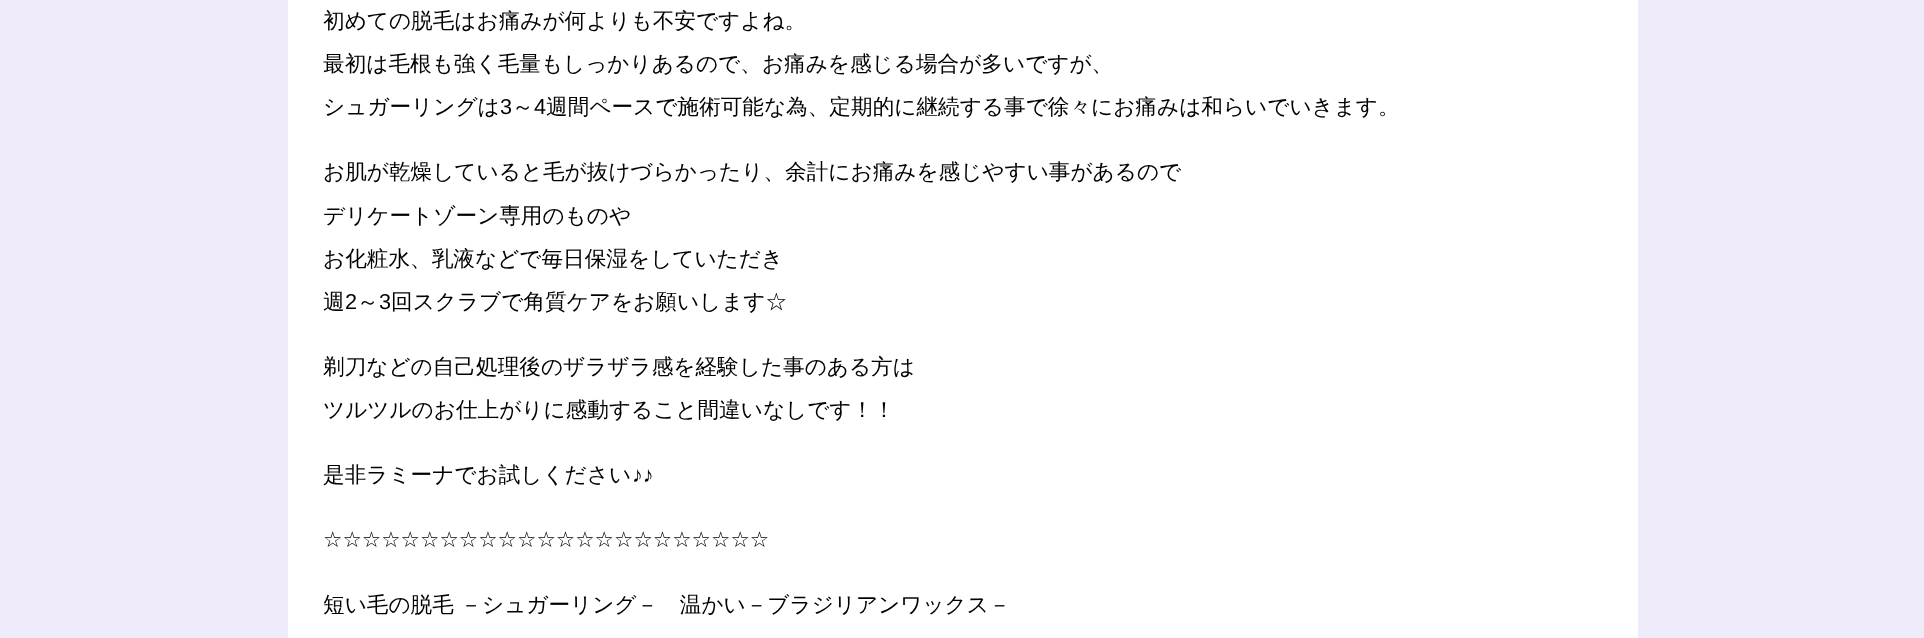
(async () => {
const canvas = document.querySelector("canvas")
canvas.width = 1924
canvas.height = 638
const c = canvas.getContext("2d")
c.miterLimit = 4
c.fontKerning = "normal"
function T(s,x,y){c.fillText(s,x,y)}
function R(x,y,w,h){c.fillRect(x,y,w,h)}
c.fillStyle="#efebfb"
R(0,0,1924,638)
c.fillStyle="#fff"
R(288,0,1350,638)
c.font="500 21.65px WenQuanYi Zen Hei"
c.fillStyle="#000"
T("初めての脱毛はお痛みが何よりも不安ですよね。",323,28)
T("最初は毛根も強く毛量もしっかりあるので、お痛みを感じる場合が多いですが、",323,71)
T("シュガーリングは",323,114)
c.font="21.65px Liberation Sans"
T("3",500,114)
c.font="500 21.65px WenQuanYi Zen Hei"
T("～",512,114)
c.font="21.65px Liberation Sans"
T("4",534,114)
c.font="500 21.65px WenQuanYi Zen Hei"
T("週間ペースで施術可能な為、定期的に継続する事で徐々にお痛みは和らいでいきます。",546,114)
T("お肌が乾燥していると毛が抜けづらかったり、余計にお痛みを感じやすい事があるので",323,179)
T("デリケートゾーン専用のものや",323,223)
T("お化粧水、乳液などで毎日保湿をしていただき",323,266)
T("週",323,309)
c.font="21.65px Liberation Sans"
T("2",345,309)
c.font="500 21.65px WenQuanYi Zen Hei"
T("～",357,309)
c.font="21.65px Liberation Sans"
T("3",379,309)
c.font="500 21.65px WenQuanYi Zen Hei"
T("回スクラブで角質ケアをお願いします☆",391,309)
T("剃刀などの自己処理後のザラザラ感を経験した事のある方は",323,374)
T("ツルツルのお仕上がりに感動すること間違いなしです！！",323,417)
T("是非ラミーナでお試しください",323,482)
c.font="21.65px Liberation Sans"
T("♪♪",632,482)
c.font="21.65px DejaVu Sans"
T("☆☆☆☆☆☆☆☆☆☆☆☆☆☆☆☆☆☆☆☆☆☆☆",323,547)
c.font="500 21.65px WenQuanYi Zen Hei"
T("短い毛の脱毛 －シュガーリング－　温かい－ブラジリアンワックス－",323,612)
})()
